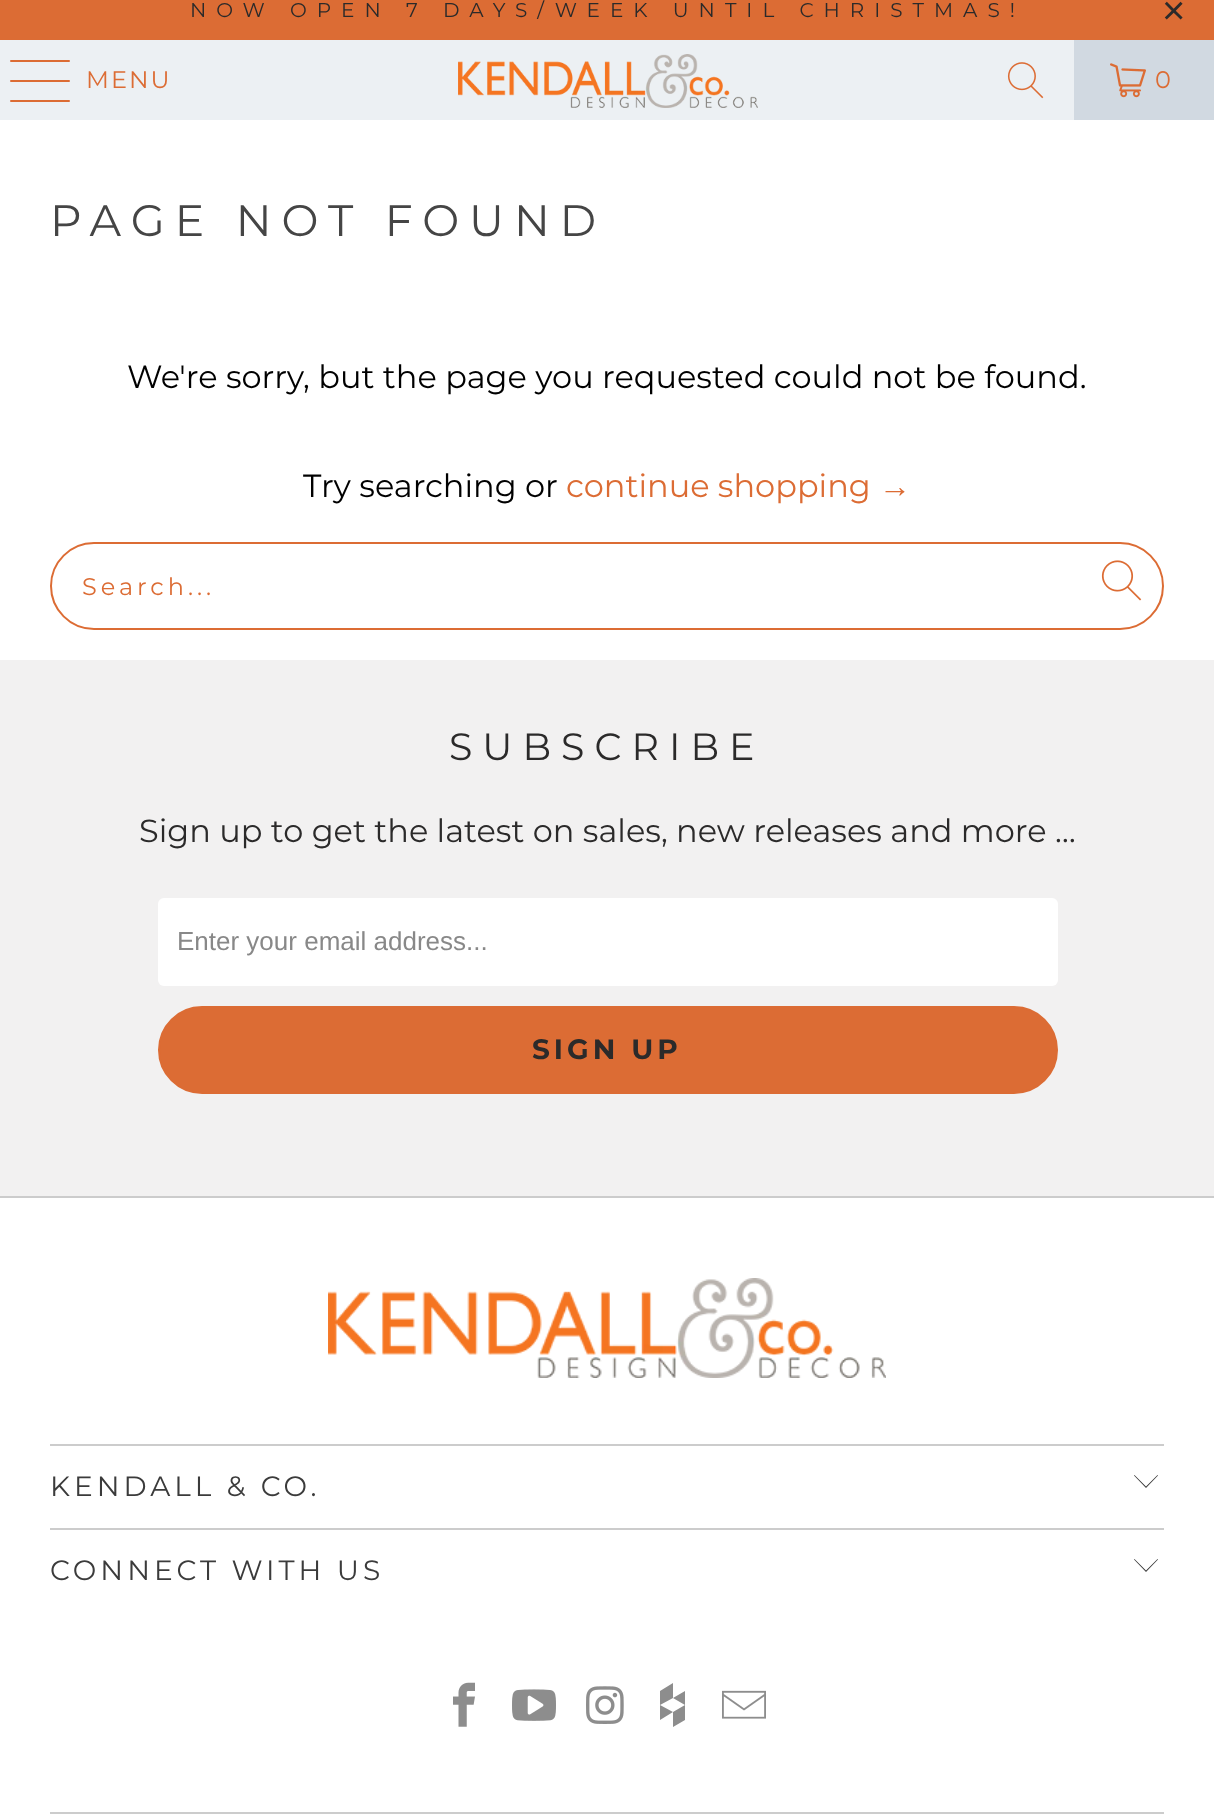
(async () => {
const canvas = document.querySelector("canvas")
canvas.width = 1214
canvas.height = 1815
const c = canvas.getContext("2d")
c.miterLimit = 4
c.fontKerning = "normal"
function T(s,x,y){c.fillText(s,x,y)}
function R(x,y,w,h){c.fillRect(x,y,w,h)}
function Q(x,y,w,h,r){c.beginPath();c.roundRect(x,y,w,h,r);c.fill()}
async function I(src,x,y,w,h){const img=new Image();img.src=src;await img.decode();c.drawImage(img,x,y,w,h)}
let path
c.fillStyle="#fff"
R(0,0,1214,1815)
c.fillStyle="#dc6c34"
R(0,0,1214,40)
c.letterSpacing="10px"
c.font="20px Montserrat"
c.fillStyle="#2b2a2a"
T("NOW OPEN 7 DAYS/WEEK UNTIL CHRISTMAS!",190,17)
c.font="40px Liberation Sans"
T("×",1162,24)
c.fillStyle="#ecf0f3"
R(0,40,1074,80)
c.fillStyle="#dc6c34"
Q(10,60,60,2,1)
Q(10,80,60,2,1)
Q(10,100,60,2,1)
c.letterSpacing="2px"
c.font="24px Montserrat"
T("MENU",86,88)
await I("1.png",458,54,300,54)
await I("2.png",1007,62,37,37)
c.fillStyle="#d1d9e1"
R(1074,40,140,80)
await I("3.png",1110,63,36,35)
c.fillStyle="#dc6c34"
T("0",1155,88)
c.letterSpacing="10px"
c.font="44px Montserrat"
c.fillStyle="#454545"
T("PAGE NOT FOUND",50,236)
c.letterSpacing="0px"
c.font="32px Montserrat"
c.fillStyle="#000"
T("We're sorry, but the page you requested could not be found.",127,388)
T("Try searching or",303,497)
c.fillStyle="#dc6c34"
T("continue shopping",566,497)
c.font="32px Liberation Sans"
T("→",879,497)
c.beginPath()
c.roundRect(51,543,1112,86,43)
c.strokeStyle="#dc6c34"
c.lineWidth=2
c.stroke()
c.letterSpacing="4px"
c.font="24px Montserrat"
T("Search...",82,595)
await I("4.png",1101,560,41,41)
c.fillStyle="#f2f1f1"
R(0,660,1214,536)
c.letterSpacing="10px"
c.font="38px Montserrat"
c.fillStyle="#2b2a2a"
T("SUBSCRIBE",449,760)
c.letterSpacing="0px"
c.font="32px Montserrat"
T("Sign up to get the latest on sales, new releases and more …",139,842)
c.fillStyle="#fff"
Q(158,898,900,88,6)
c.font="26px Liberation Sans"
c.fillStyle="#888"
T("Enter your email address...",177,950)
c.fillStyle="#dc6c34"
c.beginPath()
c.roundRect(159,1007,898,86,43)
c.fill()
c.stroke()
c.letterSpacing="4px"
c.font="bold 28px Montserrat"
c.fillStyle="#2b2a2a"
T("SIGN UP",532,1059)
c.fillStyle="#ccc"
R(0,1196,1214,2)
await I("5.png",328,1278,558,100)
R(50,1444,1114,2)
c.font="28px Montserrat"
c.fillStyle="#3b3b3b"
T("KENDALL & CO.",50,1496)
path = new Path2D("M1146 1488l-12-12.5l.5-.5l11.5 11.5l11.5-11.5l.5 .5z")
c.fill(path)
c.fillStyle="#ccc"
R(50,1528,1114,2)
c.fillStyle="#3b3b3b"
T("CONNECT WITH US",50,1580)
path = new Path2D("M1146 1572l-12-12.5l.5-.5l11.5 11.5l11.5-11.5l.5 .5z")
c.fill(path)
await I("6.png",453,1682,22,45)
await I("7.png",512,1689,44,32)
await I("8.png",586,1686,38,38)
c.fillStyle="#8d8d8d"
path = new Path2D("M673 1712l12-7v15l-12 7zm-13-7v15l13-8zm13-22v15l-13 7v-14zm0 15l12-7v14z")
c.fill(path)
await I("9.png",722,1690,44,29)
c.fillStyle="#ccc"
R(50,1812,1114,2)
})()
